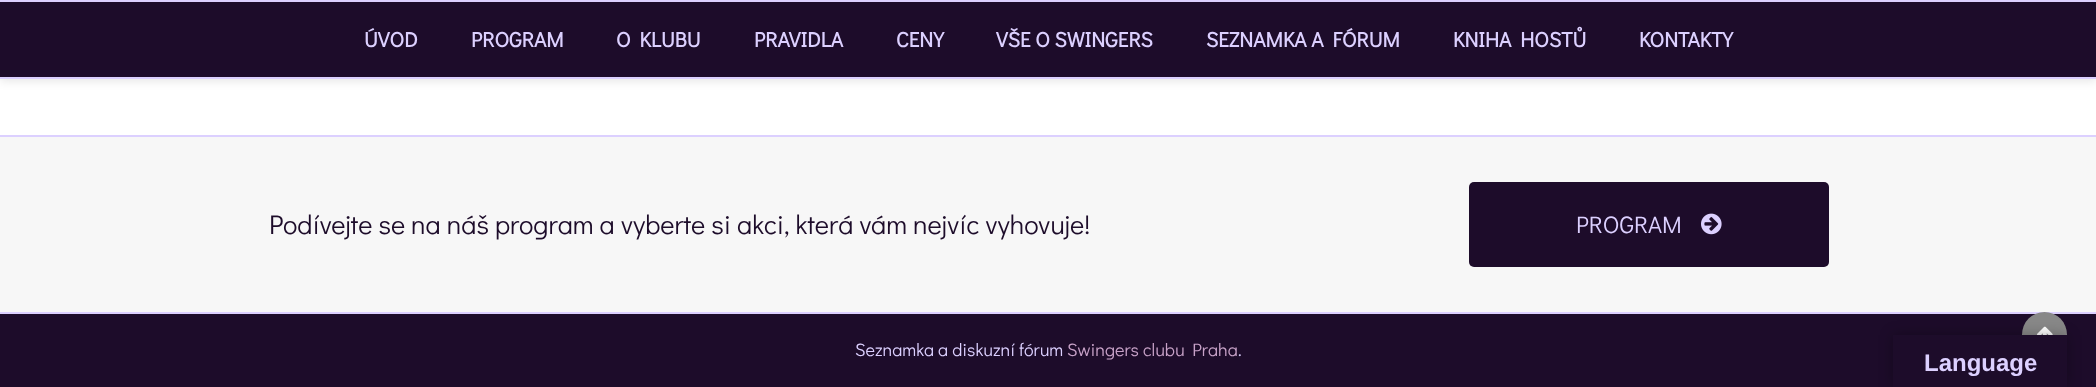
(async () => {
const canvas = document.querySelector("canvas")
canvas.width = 2096
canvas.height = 387
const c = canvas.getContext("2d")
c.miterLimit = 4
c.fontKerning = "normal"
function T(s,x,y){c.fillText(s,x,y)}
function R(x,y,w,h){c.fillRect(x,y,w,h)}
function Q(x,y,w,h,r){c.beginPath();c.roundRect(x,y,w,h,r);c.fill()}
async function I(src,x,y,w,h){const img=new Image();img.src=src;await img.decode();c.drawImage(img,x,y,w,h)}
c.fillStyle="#fff"
R(0,0,2096,387)
c.fillStyle="#0000001a"
c.filter="blur(5px)"
c.beginPath()
c.rect(0,3,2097,78)
c.fill()
c.filter="none"
c.fillStyle="#1d0c2a"
R(0,2,2096,75)
c.fillStyle="#dcd0ff"
R(0,0,2096,2)
R(0,77,2096,2)
c.font="bold 21px Didact Gothic"
T("ÚVOD",364,47)
T("PROGRAM",471,47)
T("O KLUBU",616,47)
T("PRAVIDLA",754,47)
T("CENY",896,47)
T("VŠE O SWINGERS",996,47)
T("SEZNAMKA A FÓRUM",1206,47)
T("KNIHA HOSTŮ",1453,47)
T("KONTAKTY",1639,47)
c.fillStyle="#f7f7f7"
R(0,137,2096,175)
c.fillStyle="#dcd0ff"
R(0,135,2096,2)
R(0,312,2096,2)
c.font="27px Didact Gothic"
c.fillStyle="#1d0c2a"
T("Podívejte se na náš program a vyberte si akci, která vám nejvíc vyhovuje!",269,234)
Q(1469,182,360,85,5)
c.font="24px Didact Gothic"
c.fillStyle="#dcd0ff"
T("PROGRAM",1576,233)
await I("1.png",1701,213,21,22)
c.fillStyle="#1d0c2a"
R(0,314,2096,73)
c.font="18px Didact Gothic"
c.fillStyle="#dcd0ff"
T("Seznamka a diskuzní fórum",855,356)
c.fillStyle="#c8a2c8"
T("Swingers clubu Praha",1067,356)
c.fillStyle="#dcd0ff"
T(".",1238,356)
c.fillStyle="#888"
c.beginPath()
c.arc(2044.5,334.5,22.5,0,7)
c.fill()
await I("2.png",2037,326,16,9)
c.fillStyle="#0000004d"
c.filter="blur(7px)"
c.beginPath()
c.rect(1893,335,174,52)
c.fill()
c.filter="none"
c.fillStyle="#1d0c2a"
R(1893,335,174,52)
c.font="bold 24px Liberation Sans"
c.fillStyle="#dcd0ff"
T("Language",1924,371)
})()
